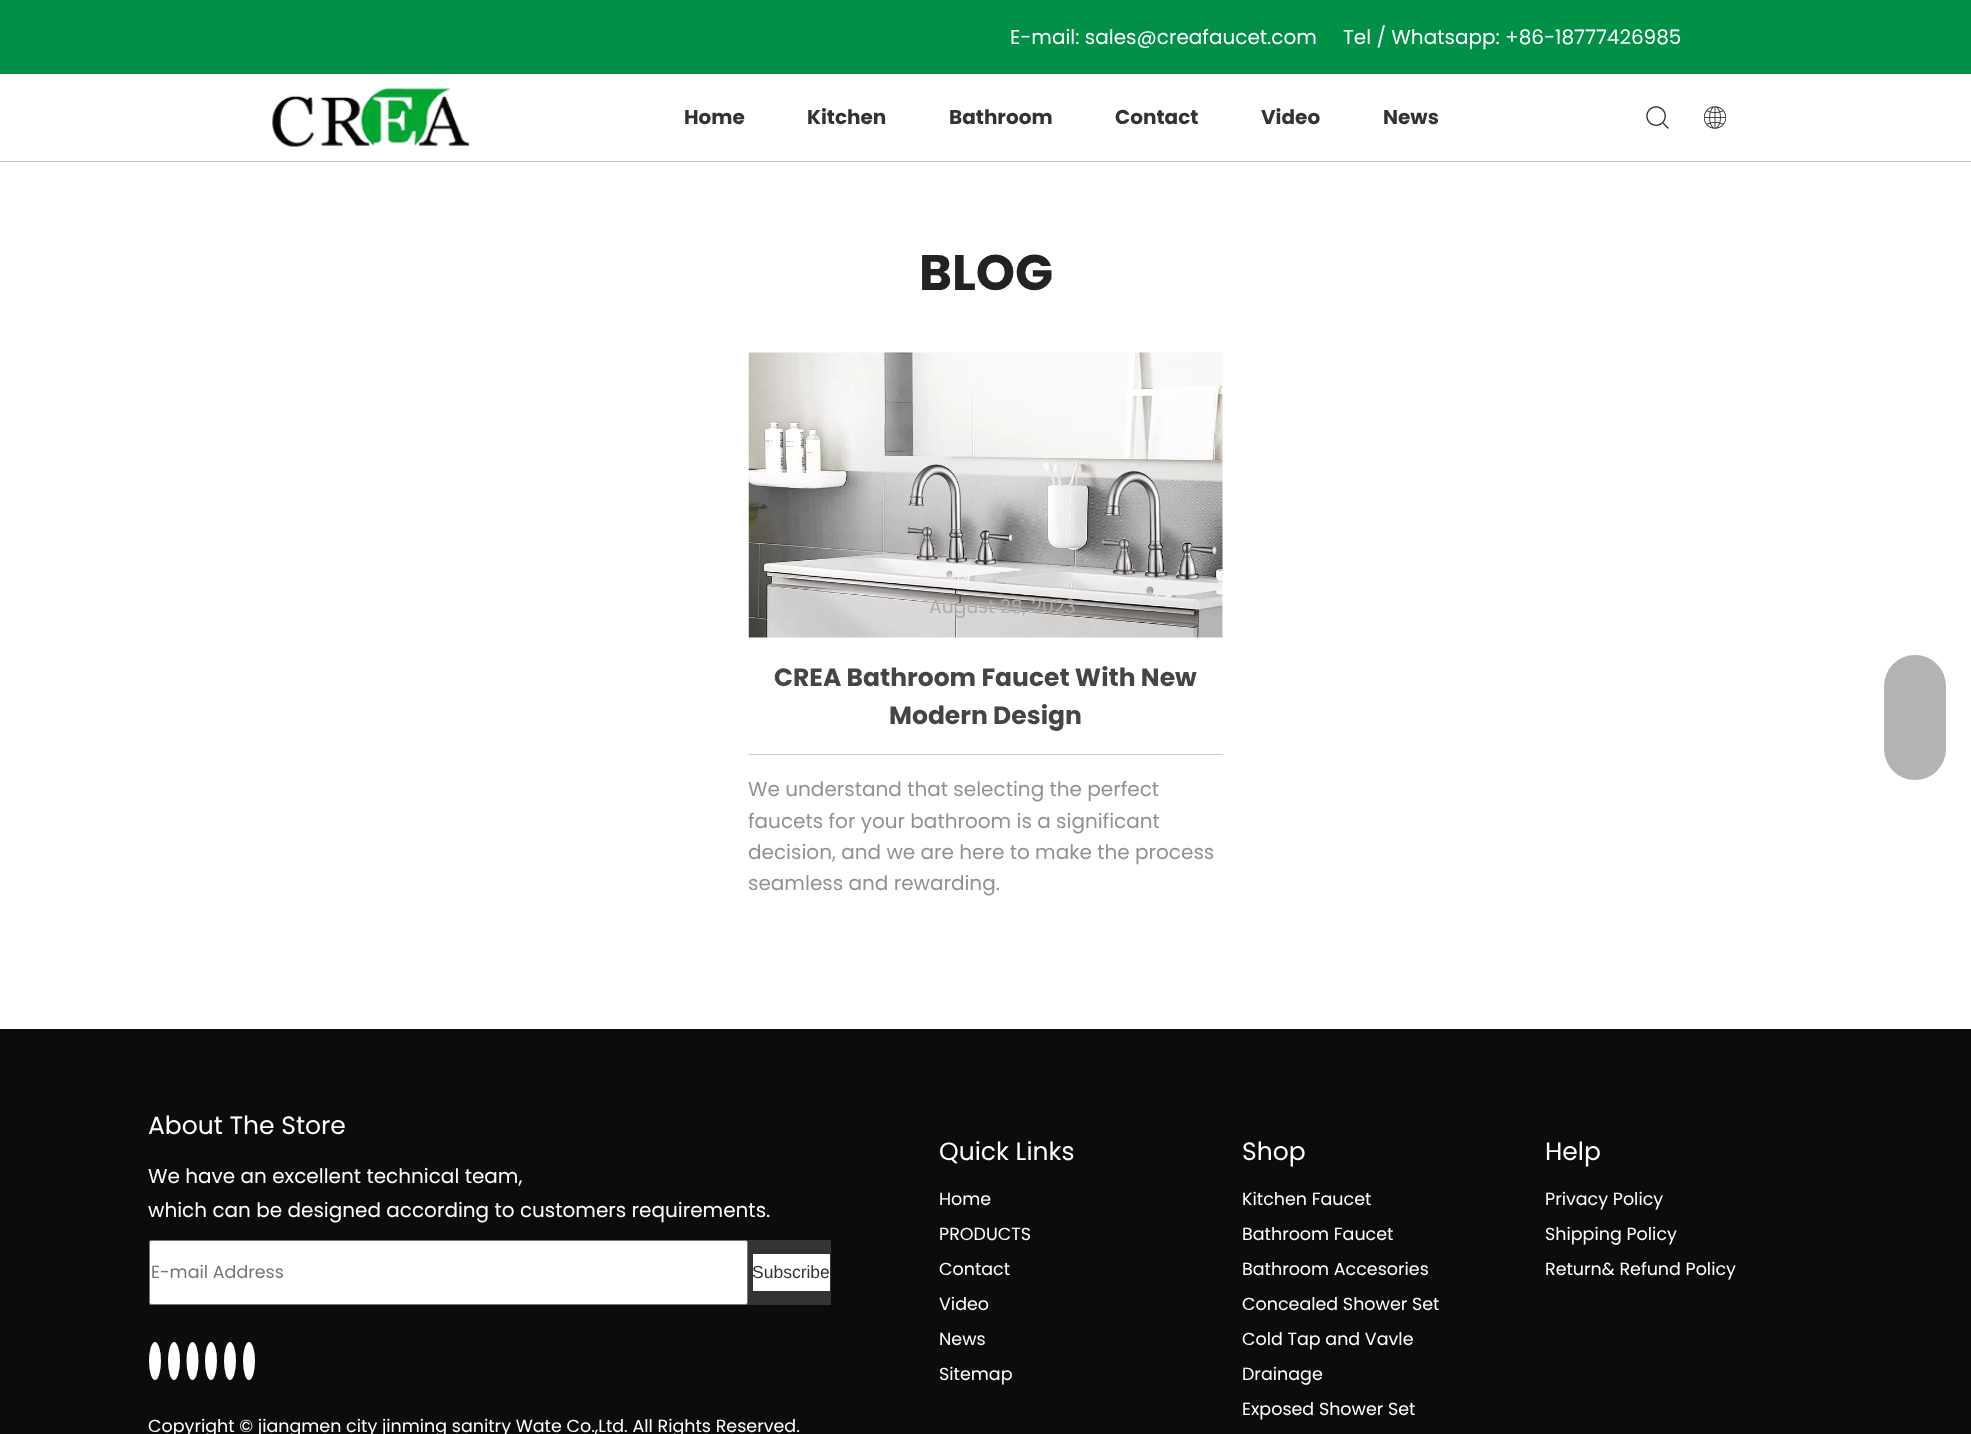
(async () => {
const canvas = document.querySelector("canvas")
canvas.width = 1971
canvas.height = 1434
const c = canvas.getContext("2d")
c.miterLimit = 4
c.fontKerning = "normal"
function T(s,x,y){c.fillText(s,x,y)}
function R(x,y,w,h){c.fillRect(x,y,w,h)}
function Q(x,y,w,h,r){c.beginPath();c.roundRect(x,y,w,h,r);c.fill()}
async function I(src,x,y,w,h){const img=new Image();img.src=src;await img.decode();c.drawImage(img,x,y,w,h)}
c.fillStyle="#fff"
R(0,0,1971,1434)
c.fillStyle="#009048"
R(0,0,1971,74)
c.font="20px Poppins"
c.fillStyle="#fff"
T("E-mail: sales@creafaucet.com",1010,44)
T("Tel / Whatsapp: +86-18777426985",1343,44)
c.fillStyle="#c9c9c9"
R(0,161,1971,1)
await I("1.png",272,88,197,59)
c.font="bold 20px Poppins"
c.fillStyle="#333"
T("Home",684,124)
T("Kitchen",807,124)
T("Bathroom",949,124)
T("Contact",1115,124)
T("Video",1261,124)
T("News",1383,124)
await I("2.png",1646,106,23,23)
await I("3.png",1704,106,22,23)
c.font="bold 50px Poppins"
c.fillStyle="#222"
T("BLOG",919,290)
await I("4.png",748,352,475,286)
c.font="18.75px Poppins"
c.fillStyle="#afacaa"
T("August 28, 2023",929,613)
c.font="bold 25px Poppins"
c.fillStyle="#454545"
T("CREA Bathroom Faucet With New",774,686)
T("Modern Design",889,724)
c.fillStyle="#ccc"
R(749,754,474,1)
c.font="20px Poppins"
c.fillStyle="#919191"
T("We understand that selecting the perfect",748,796)
T("faucets for your bathroom is a significant",748,828)
T("decision, and we are here to make the process",748,859)
T("seamless and rewarding.",748,890)
c.fillStyle="#0c0c0c"
R(0,1029,1971,405)
c.fillStyle="#b3b3b3"
Q(1884,655,62,125,31)
c.font="25px Poppins"
c.fillStyle="#fff"
T("About The Store",148,1134)
c.font="20px Poppins"
T("We have an excellent technical team,",148,1183)
T("which can be designed according to customers requirements.",148,1217)
c.fillStyle="#333"
R(149,1240,682,65)
c.fillStyle="#fff"
c.beginPath()
c.roundRect(149.5,1240.5,598,64,2)
c.fill()
c.strokeStyle="#767676"
c.stroke()
c.font="17.5px Poppins"
c.fillStyle="#757575"
T("E-mail Address",151,1278)
c.fillStyle="#fff"
R(753,1254,77,37)
c.font="17.5px Liberation Sans"
c.fillStyle="#333"
T("Subscribe",752,1278)
c.fillStyle="#fff"
c.beginPath()
c.ellipse(155,1361,6,19,0,0,7)
c.fill()
c.beginPath()
c.ellipse(174,1361,6,19,0,0,7)
c.fill()
c.beginPath()
c.ellipse(192.5,1361,6,19,0,0,7)
c.fill()
c.beginPath()
c.ellipse(211,1361,6,19,0,0,7)
c.fill()
c.beginPath()
c.ellipse(230,1361,6,19,0,0,7)
c.fill()
c.beginPath()
c.ellipse(249,1361,6,19,0,0,7)
c.fill()
c.font="17.5px Poppins"
T("Copyright © jiangmen city jinming sanitry Wate Co.,Ltd. All Rights Reserved.",148,1432)
c.font="25px Poppins"
T("Quick Links",939,1160)
c.font="17.5px Poppins"
T("Home",939,1205)
T("PRODUCTS",939,1240)
T("Contact",939,1275)
T("Video",939,1310)
T("News",939,1345)
T("Sitemap",939,1380)
c.font="25px Poppins"
T("Shop",1242,1160)
c.font="17.5px Poppins"
T("Kitchen Faucet",1242,1205)
T("Bathroom Faucet",1242,1240)
T("Bathroom Accesories",1242,1275)
T("Concealed Shower Set",1242,1310)
T("Cold Tap and Vavle",1242,1345)
T("Drainage",1242,1380)
T("Exposed Shower Set",1242,1415)
c.font="25px Poppins"
T("Help",1545,1160)
c.font="17.5px Poppins"
T("Privacy Policy",1545,1205)
T("Shipping Policy",1545,1240)
T("Return& Refund Policy",1545,1275)
})()
